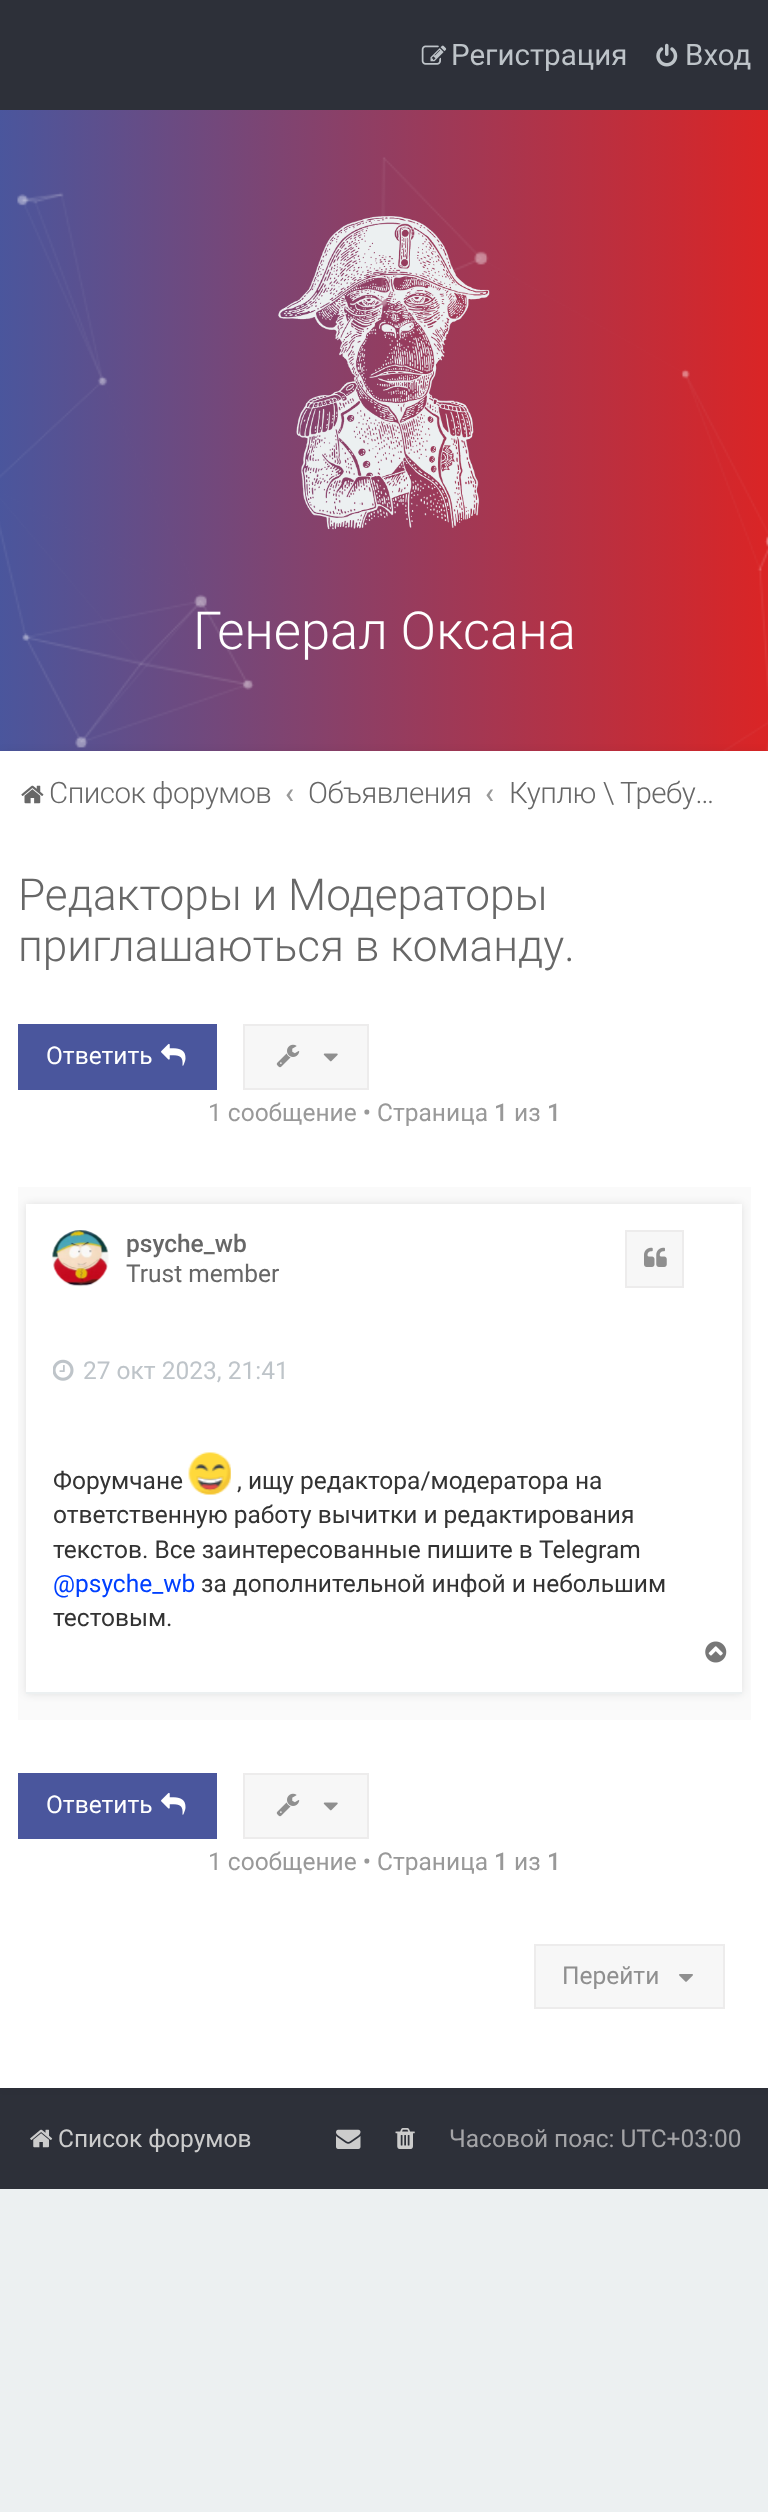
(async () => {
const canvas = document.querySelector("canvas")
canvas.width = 768
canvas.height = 2512
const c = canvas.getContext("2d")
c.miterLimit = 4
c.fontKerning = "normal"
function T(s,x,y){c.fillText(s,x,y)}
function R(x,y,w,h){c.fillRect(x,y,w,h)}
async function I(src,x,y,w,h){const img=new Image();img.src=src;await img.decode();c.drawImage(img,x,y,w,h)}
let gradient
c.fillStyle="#ecf0f1"
R(0,0,768,2512)
c.fillStyle="#2d3039"
R(0,0,768,110)
await I("1.png",421,45,26,20)
c.font="29.5px Roboto"
c.fillStyle="#bec4c9"
T("Регистрация",451,65)
await I("2.png",656,43,22,24)
T("Вход",685,65)
gradient = c.createLinearGradient(-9,474,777,474)
gradient.addColorStop(.01,"#4a569d")
gradient.addColorStop(1,"#dc2424")
c.fillStyle = gradient
R(0,110,768,641)
await I("3.png",0,157,768,594)
await I("4.png",278,216,212,314)
c.font="300 52.5px Roboto"
c.fillStyle="#fff"
T("Генерал Оксана",193,649)
c.fillStyle="#2d3039"
R(0,2088,768,101)
c.fillStyle="#0000000d"
c.filter="blur(4.5px)"
c.beginPath()
c.rect(0,751,768,1337)
c.fill()
c.filter="none"
c.fillStyle="#fff"
R(0,751,768,1337)
await I("5.png",21,785,23,19)
c.letterSpacing="-0.5px"
c.font="300 29.5px Roboto"
c.fillStyle="#676767"
T("Список форумов",49,803)
c.letterSpacing="0px"
c.font="500 29.5px Roboto"
c.fillStyle="#999"
T("‹",285,803)
c.letterSpacing="-0.5px"
c.font="300 29.5px Roboto"
c.fillStyle="#676767"
T("Объявления",308,803)
c.letterSpacing="0px"
c.font="500 29.5px Roboto"
c.fillStyle="#999"
T("‹",485,803)
c.letterSpacing="-0.5px"
c.font="300 29.5px Roboto"
c.fillStyle="#676767"
T("Куплю \\ Требу…",509,803)
c.letterSpacing="0px"
c.font="300 44.1px Roboto"
T("Редакторы и Модераторы",18,910)
T("приглашаються в команду.",18,961)
c.fillStyle="#4a569d"
R(18,1024,199,66)
c.font="24.5px Roboto"
c.fillStyle="#fff"
T("Ответить",46,1064)
await I("6.png",161,1043,25,23)
c.fillStyle="#f7f7f7"
c.beginPath()
c.rect(244,1025,124,64)
c.fill()
c.strokeStyle="#edecec"
c.lineWidth=2
c.stroke()
await I("7.png",276,1044,24,24)
await I("8.png",323,1053,15,9)
c.fillStyle="#999"
T("1 сообщение • Страница",208,1121)
c.font="500 24.5px Roboto"
T("1",494,1121)
c.font="24.5px Roboto"
T("из",514,1121)
c.font="500 24.5px Roboto"
T("1",547,1121)
c.fillStyle="#fafafa"
R(18,1187,733,533)
c.fillStyle="#0000001a"
c.filter="blur(4.5px)"
c.beginPath()
c.rect(26,1204,716,490)
c.fill()
c.filter="none"
c.fillStyle="#fff"
R(26,1204,716,488)
c.fillStyle="#ecf0f1"
R(26,1692,716,2)
await I("9.png",52,1230,57,57)
c.fillStyle="#676767"
T("psyche_wb",126,1252)
c.font="24.5px Roboto"
T("Trust member",126,1282)
c.fillStyle="#f7f7f7"
c.beginPath()
c.rect(626,1231,57,56)
c.fill()
c.stroke()
await I("10.png",644,1247,23,20)
await I("11.png",53,1359,21,22)
c.fillStyle="#bec4c9"
T("27 окт 2023, 21:41",83,1379)
c.fillStyle="#333"
T("Форумчане",53,1489)
await I("12.png",188,1452,43,43)
T(", ищу редактора/модератора на",237,1489)
T("ответственную работу вычитки и редактирования",53,1523)
T("текстов. Все заинтересованные пишите в Telegram",53,1558)
c.fillStyle="#0040ff"
T("@psyche_wb",53,1592)
c.fillStyle="#333"
T("за дополнительной инфой и небольшим",201,1592)
T("тестовым.",53,1626)
await I("13.png",705,1641,22,22)
c.fillStyle="#4a569d"
R(18,1773,199,66)
c.fillStyle="#fff"
T("Ответить",46,1813)
await I("6.png",161,1792,25,23)
c.fillStyle="#f7f7f7"
c.beginPath()
c.rect(244,1774,124,64)
c.fill()
c.stroke()
await I("7.png",276,1793,24,24)
await I("8.png",323,1802,15,9)
c.fillStyle="#999"
T("1 сообщение • Страница",208,1870)
c.font="500 24.5px Roboto"
T("1",494,1870)
c.font="24.5px Roboto"
T("из",514,1870)
c.font="500 24.5px Roboto"
T("1",547,1870)
c.fillStyle="#f7f7f7"
c.beginPath()
c.rect(535,1945,189,63)
c.fill()
c.stroke()
c.font="24.5px Roboto"
c.fillStyle="#8f8f8f"
T("Перейти",562,1984)
await I("14.png",679,1974,14,8)
await I("15.png",30,2129,23,19)
c.fillStyle="#ccc"
T("Список форумов",58,2147)
await I("16.png",336,2129,25,20)
await I("17.png",395,2128,20,21)
c.fillStyle="#a4a4a7"
T("Часовой пояс: UTC+03:00",449,2147)
})()
